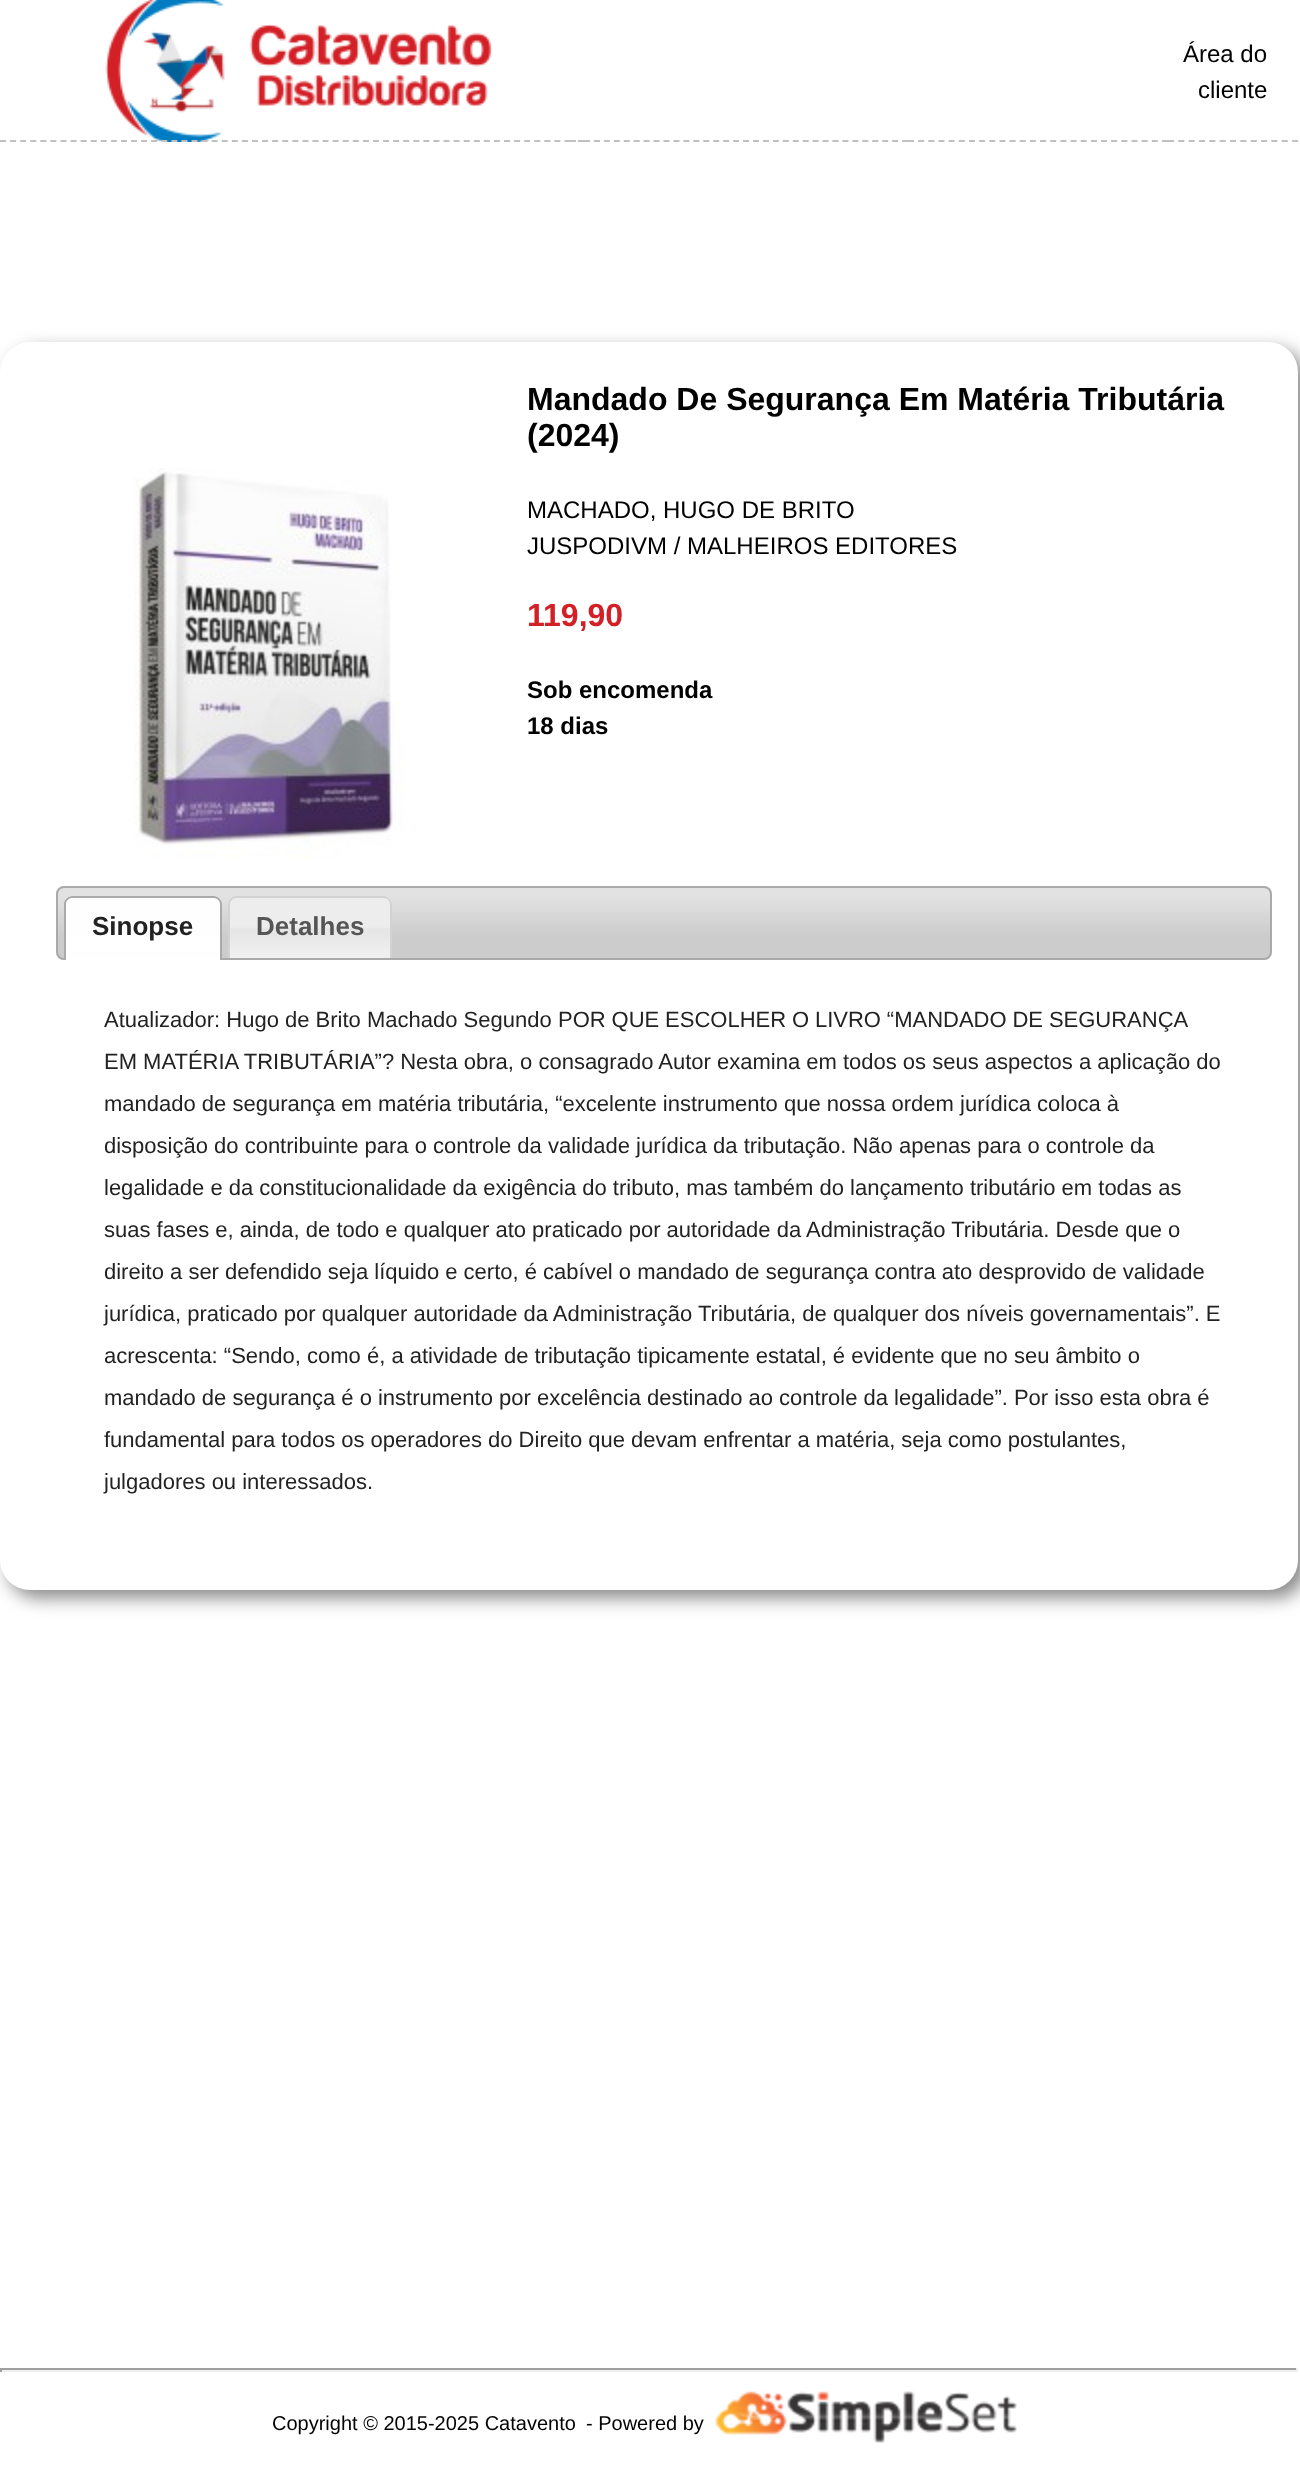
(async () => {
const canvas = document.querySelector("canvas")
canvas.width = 1300
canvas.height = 2472
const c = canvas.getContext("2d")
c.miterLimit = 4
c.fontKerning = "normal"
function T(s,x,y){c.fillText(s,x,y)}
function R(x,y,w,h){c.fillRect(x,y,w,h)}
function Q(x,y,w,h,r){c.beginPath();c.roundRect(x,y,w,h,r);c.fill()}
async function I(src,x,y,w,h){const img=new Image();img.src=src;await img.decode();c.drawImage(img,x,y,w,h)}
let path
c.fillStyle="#fff"
R(0,0,1300,2472)
await I("1.png",105,0,387,142)
path = new Path2D("M0 141h570")
c.strokeStyle="#c0c0c0"
c.lineWidth=2
c.setLineDash([6,4.08])
c.stroke(path)
path = new Path2D("M1168 141h130")
c.setLineDash([6,4.34])
c.stroke(path)
c.font="24px Liberation Sans"
c.fillStyle="#000"
T("Área do",1183,62)
T("cliente",1198,98)
path = new Path2D("M570 141h6m2 0h6")
c.setLineDash([])
c.stroke(path)
path = new Path2D("M584 141h324")
c.setLineDash([6,3.94])
c.stroke(path)
path = new Path2D("M908 141h260")
c.setLineDash([6,4.16])
c.stroke(path)
c.fillStyle="#888"
c.filter="blur(9px)"
c.beginPath()
c.roundRect(8,350,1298,1248,30)
c.fill()
c.filter="none"
c.fillStyle="#fff"
Q(0,342,1298,1248,30)
await I("2.png",134,468,271,391)
c.font="bold 32px Liberation Sans"
c.fillStyle="#000"
T("Mandado De Segurança Em Matéria Tributária",527,410)
T("(2024)",527,446)
c.font="24px Liberation Sans"
T("MACHADO, HUGO DE BRITO",527,518)
T("JUSPODIVM / MALHEIROS EDITORES",527,554)
c.font="bold 32px Liberation Sans"
c.fillStyle="#d22026"
T("119,90",527,626)
c.font="bold 24px Liberation Sans"
c.fillStyle="#000"
T("Sob encomenda",527,698)
T("18 dias",527,734)
await I("3.png",56,886,1216,74)
c.beginPath()
c.roundRect(57,887,1214,72,7)
c.strokeStyle="#aaa"
c.setLineDash([])
c.stroke()
await I("4.png",64,896,158,64)
c.fillStyle="#aaa"
path = new Path2D("M72 896h142c4 0 8 4 8 8v56h-158v-56c0-4 4-8 8-8zm0 2h142c3 0 6 3 6 6v56h-154v-56c0-3 3-6 6-6z")
c.fill(path,"evenodd")
c.font="bold 26px Liberation Sans"
c.fillStyle="#222"
T("Sinopse",92,935)
await I("5.png",228,896,164,62)
c.fillStyle="#d3d3d3"
path = new Path2D("M236 896h148c4 0 8 4 8 8v54h-164v-54c0-4 4-8 8-8zm0 2h148c3 0 6 3 6 6v54h-160v-54c0-3 3-6 6-6z")
c.fill(path,"evenodd")
c.fillStyle="#555"
T("Detalhes",256,935)
c.font="22px Liberation Sans"
c.fillStyle="#222"
T("Atualizador: Hugo de Brito Machado Segundo",104,1027)
c.wordSpacing="-0.25px"
T("POR QUE ESCOLHER O LIVRO “MANDADO DE SEGURANÇA",558,1027)
c.wordSpacing="0px"
T("EM MATÉRIA TRIBUTÁRIA”? Nesta obra, o consagrado Autor examina em todos os seus aspectos a aplicação do",104,1069)
T("mandado de segurança em matéria tributária, “excelente instrumento que nossa ordem jurídica coloca à",104,1111)
T("disposição do contribuinte para o controle da validade jurídica da tributação. Não apenas para o controle da",104,1153)
T("legalidade e da constitucionalidade da exigência do tributo, mas também do lançamento tributário em todas as",104,1195)
T("suas fases e, ainda, de todo e qualquer ato praticado por autoridade da Administração Tributária. Desde que o",104,1237)
T("direito a ser defendido seja líquido e certo, é cabível o mandado de segurança contra ato desprovido de validade",104,1279)
T("jurídica, praticado por qualquer autoridade da Administração Tributária, de qualquer dos níveis governamentais”. E",104,1321)
T("acrescenta: “Sendo, como é, a atividade de tributação tipicamente estatal, é evidente que no seu âmbito o",104,1363)
T("mandado de segurança é o instrumento por excelência destinado ao controle da legalidade”. Por isso esta obra é",104,1405)
T("fundamental para todos os operadores do Direito que devam enfrentar a matéria, seja como postulantes,",104,1447)
T("julgadores ou interessados.",104,1489)
c.fillStyle="#9f9f9f"
R(0,2368,1298,2)
c.fillStyle="#eee"
R(1296,2368,2,4)
R(0,2370,1298,2)
c.fillStyle="#9f9f9f"
R(0,2368,2,4)
c.font="20px Liberation Sans"
c.fillStyle="#000"
T("Copyright © 2015-2025 Catavento",272,2430)
T("- Powered by",586,2430)
await I("6.png",715,2391,302,52)
})()
